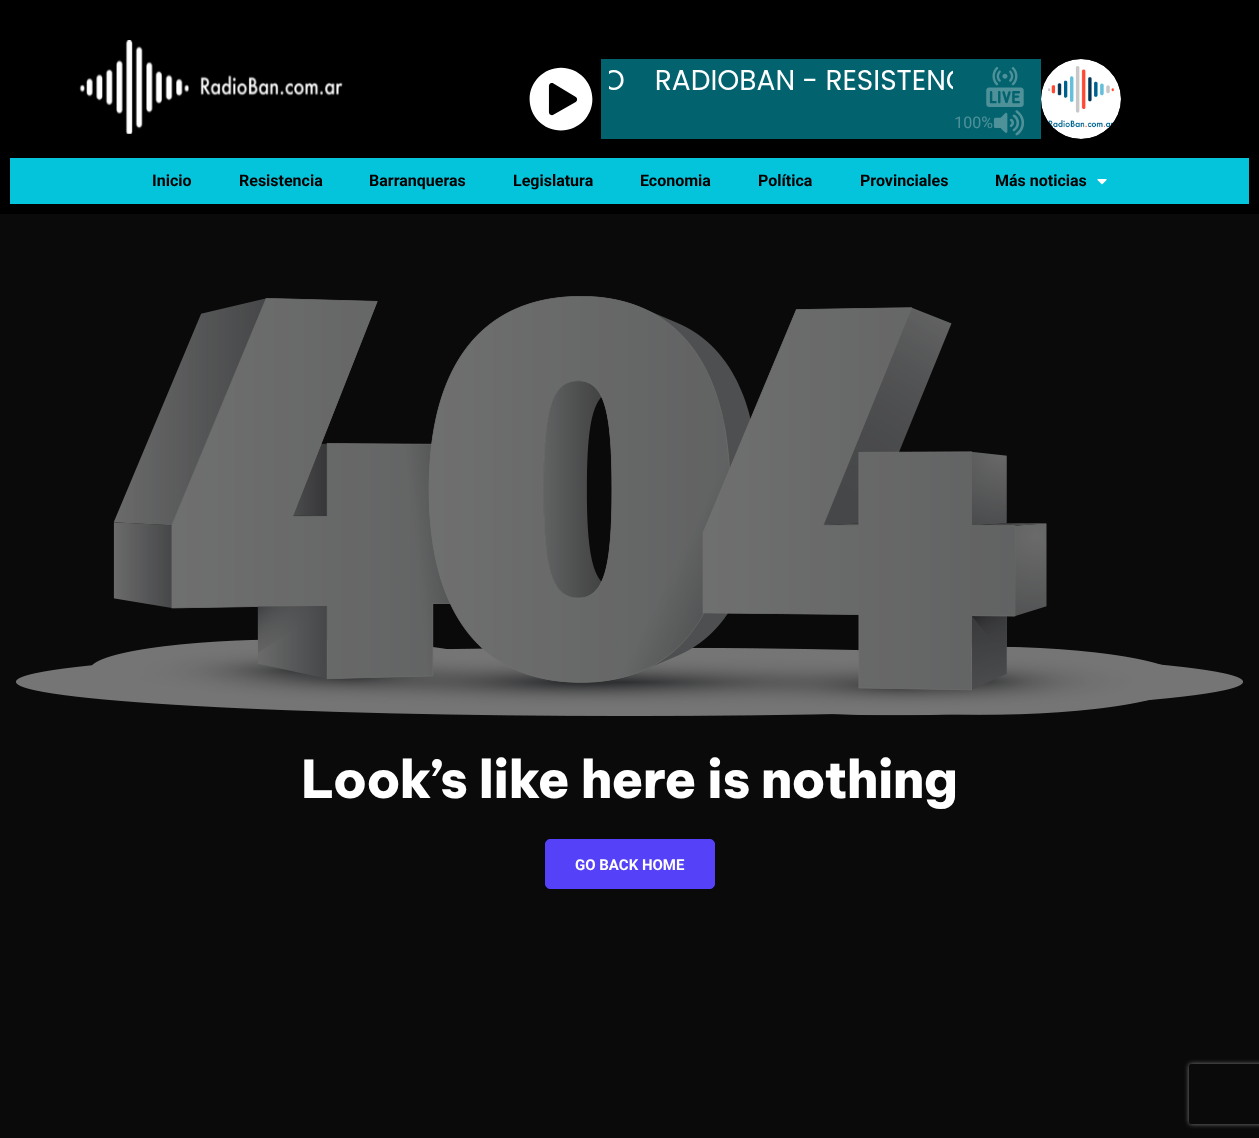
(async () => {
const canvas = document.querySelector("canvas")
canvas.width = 1259
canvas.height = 1138
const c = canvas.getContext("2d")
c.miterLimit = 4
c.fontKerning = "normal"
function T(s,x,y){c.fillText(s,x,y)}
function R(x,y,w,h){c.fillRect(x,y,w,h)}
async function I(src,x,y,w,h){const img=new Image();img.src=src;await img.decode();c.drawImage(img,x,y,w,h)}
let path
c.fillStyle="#0a0a0a"
R(0,0,1259,1138)
c.fillStyle="#000"
R(0,0,1259,214)
await I("1.png",79,40,264,94)
await I("2.png",529,59,592,80)
c.fillStyle="#04c4dc"
R(10,158,1239,46)
c.font="bold 16px Roboto"
c.fillStyle="#000"
T("Inicio",152,186)
T("Resistencia",239,186)
T("Barranqueras",369,186)
T("Legislatura",513,186)
T("Economia",640,186)
T("Política",758,186)
T("Provinciales",860,186)
T("Más noticias",995,186)
await I("3.png",1097,179,10,6)
await I("4.png",16,296,1227,420)
c.letterSpacing="-0.8px"
c.font="800 52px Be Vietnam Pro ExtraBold"
c.fillStyle="#fff"
T("Look’s like here is nothing",301,798)
c.fillStyle="#5541f8"
c.beginPath()
c.roundRect(545.5,839.5,169,49,4.5)
c.fill()
c.strokeStyle="#5541f8"
c.stroke()
c.letterSpacing="0px"
c.font="bold 15px Roboto"
c.fillStyle="#fff"
T("GO BACK HOME",575,870)
c.save()
path = new Path2D("M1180 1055h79v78h-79zm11 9h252c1 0 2 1 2 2v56c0 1-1 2-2 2h-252c-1 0-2-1-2-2v-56c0-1 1-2 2-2z")
c.clip(path,"evenodd")
c.fillStyle="#808080"
c.filter="blur(2.5px)"
c.beginPath()
c.roundRect(1189,1064,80,60,2)
c.fill()
c.filter="none"
c.restore()
})()
